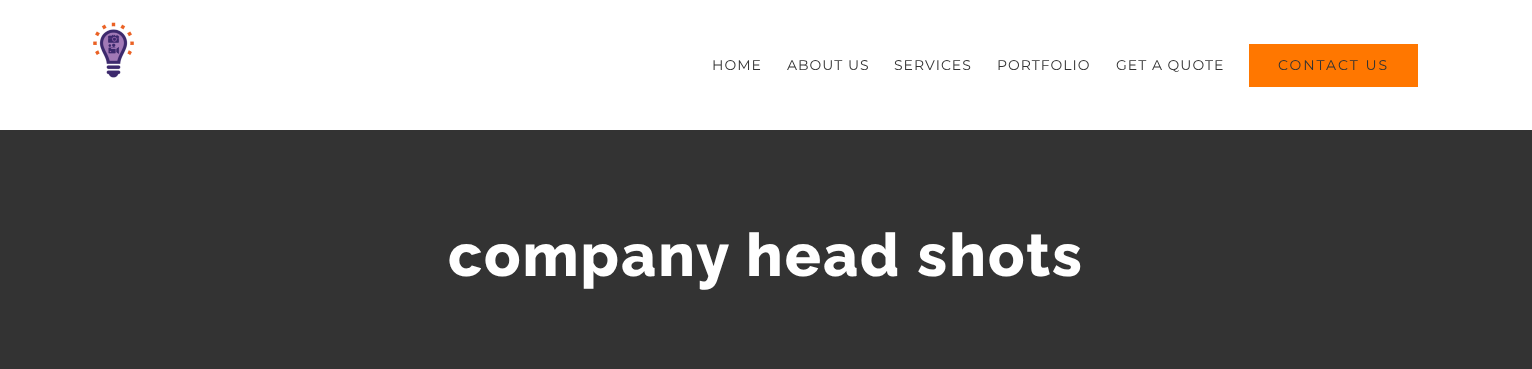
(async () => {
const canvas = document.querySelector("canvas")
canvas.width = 1532
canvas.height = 369
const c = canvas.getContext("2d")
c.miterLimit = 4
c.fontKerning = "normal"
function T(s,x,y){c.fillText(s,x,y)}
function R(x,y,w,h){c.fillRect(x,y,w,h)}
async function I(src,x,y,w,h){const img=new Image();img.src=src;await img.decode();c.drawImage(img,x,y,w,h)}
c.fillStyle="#fff"
R(0,0,1532,369)
await I("1.png",93,22,41,56)
c.letterSpacing="1px"
c.font="14px Montserrat"
c.fillStyle="#333"
T("HOME",712,70)
T("ABOUT US",787,70)
T("SERVICES",894,70)
T("PORTFOLIO",997,70)
T("GET A QUOTE",1116,70)
c.fillStyle="#f70"
R(1249,44,169,43)
c.letterSpacing="2px"
c.fillStyle="#333"
T("CONTACT US",1278,70)
R(0,130,1532,239)
c.font="800 60px Raleway"
c.fillStyle="#fff"
T("company head shots",448,276)
})()
